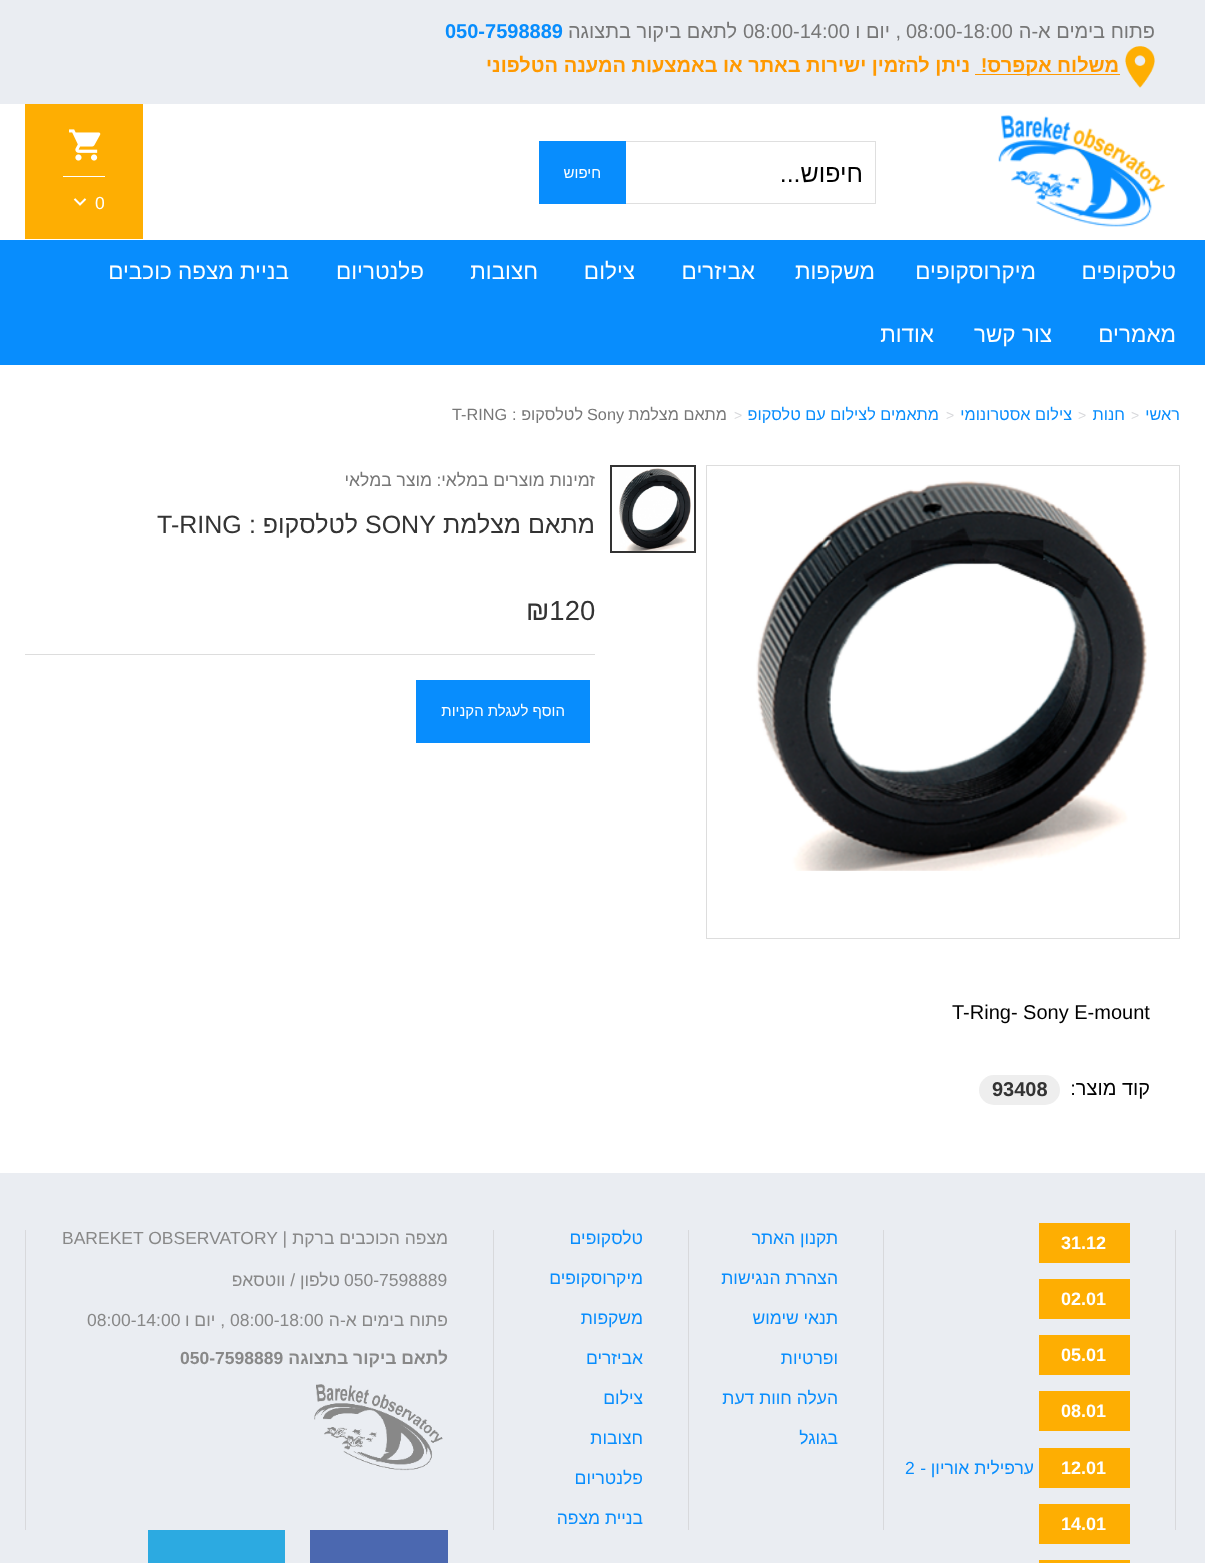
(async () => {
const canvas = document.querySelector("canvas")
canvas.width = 1205
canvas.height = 1563
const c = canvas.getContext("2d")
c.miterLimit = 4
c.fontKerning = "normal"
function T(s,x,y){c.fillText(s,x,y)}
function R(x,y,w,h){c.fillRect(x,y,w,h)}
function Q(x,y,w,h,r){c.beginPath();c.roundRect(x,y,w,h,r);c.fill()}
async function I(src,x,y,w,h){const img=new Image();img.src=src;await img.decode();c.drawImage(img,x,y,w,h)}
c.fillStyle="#eaedf2"
R(0,0,1205,1563)
c.direction="rtl"
c.font="20px Liberation Sans"
c.fillStyle="#777"
T("פתוח בימים א-ה",1155,38)
c.direction="ltr"
T("08:00-18:00",906,38)
c.direction="rtl"
T(", יום ו",901,38)
c.direction="ltr"
T("08:00-14:00",743,38)
c.direction="rtl"
T("לתאם ביקור בתצוגה",737,38)
c.direction="ltr"
c.font="bold 20px Liberation Sans"
c.fillStyle="#088dfd"
T("050-7598889",445,38)
await I("1.png",1125,46,30,42)
c.fillStyle="#f90"
R(975,74,145,1)
c.direction="rtl"
T("משלוח אקפרס!",1119,72)
T("ניתן להזמין ישירות באתר או באמצעות המענה הטלפוני",970,72)
c.fillStyle="#fff"
R(0,104,1205,136)
await I("2.png",998,115,167,112)
c.strokeStyle="#dfdfdf"
c.strokeRect(620.5,141.5,255,62)
c.font="25px Liberation Sans"
c.fillStyle="#000"
T("חיפוש...",863,182)
c.fillStyle="#088dfd"
R(539,141,87,63)
c.font="15px Liberation Sans"
c.fillStyle="#fff"
T("חיפוש",601,178)
c.fillStyle="#feae02"
R(25,104,118,135)
c.fillStyle="#fff"
R(63,176,42,1)
await I("3.png",69,129,32,32)
c.direction="ltr"
c.font="17.5px Liberation Sans"
T("0",95,209)
await I("4.png",73,198,14,8)
c.fillStyle="#088dfd"
R(0,240,1205,125)
c.direction="rtl"
c.font="22.5px Liberation Sans"
c.fillStyle="#fff"
T("טלסקופים",1176,279)
T("מיקרוסקופים",1036,279)
T("משקפות",875,279)
T("אביזרים",755,279)
T("צילום",635,279)
T("חצובות",538,279)
T("פלנטריום",424,279)
T("בניית מצפה כוכבים",289,279)
T("מאמרים",1176,342)
T("צור קשר",1052,342)
T("אודות",934,342)
R(0,365,1205,808)
c.font="16.25px Liberation Sans"
c.fillStyle="#088dfd"
T("ראשי",1180,420)
c.direction="ltr"
c.font="14px Liberation Sans"
c.fillStyle="#d8d9dc"
T(">",1131,420)
c.direction="rtl"
c.font="16.25px Liberation Sans"
c.fillStyle="#088dfd"
T("חנות",1125,420)
c.direction="ltr"
c.font="14px Liberation Sans"
c.fillStyle="#d8d9dc"
T(">",1078,420)
c.direction="rtl"
c.font="16.25px Liberation Sans"
c.fillStyle="#088dfd"
T("צילום אסטרונומי",1072,420)
c.direction="ltr"
c.font="14px Liberation Sans"
c.fillStyle="#d8d9dc"
T(">",946,420)
c.direction="rtl"
c.font="16.25px Liberation Sans"
c.fillStyle="#088dfd"
T("מתאמים לצילום עם טלסקופ",939,420)
c.direction="ltr"
c.font="14px Liberation Sans"
c.fillStyle="#d8d9dc"
T(">",734,420)
c.direction="rtl"
c.font="16.25px Liberation Sans"
c.fillStyle="#777"
T("מתאם מצלמת",727,420)
c.direction="ltr"
T("Sony",587,420)
c.direction="rtl"
T("לטלסקופ :",583,420)
c.direction="ltr"
T("T-RING",452,420)
c.strokeStyle="#ddd"
c.strokeRect(706.5,465.5,473,473)
await I("5.png",619,468,72,83)
c.strokeStyle="#333"
c.lineWidth=2
c.strokeRect(611,466,84,86)
await I("6.png",756,480,391,391)
c.direction="rtl"
c.font="17.5px Liberation Sans"
T("זמינות מוצרים במלאי:",595,486)
T("מוצר במלאי",432,486)
c.font="25px Liberation Sans"
c.fillStyle="#333"
T("מתאם מצלמת",595,533)
c.direction="ltr"
T("SONY",365,533)
c.direction="rtl"
T("לטלסקופ :",358,533)
c.direction="ltr"
T("T-RING",157,533)
c.font="27.5px Liberation Sans"
T("₪120",526,620)
c.fillStyle="#ddd"
R(25,654,570,1)
c.fillStyle="#088dfd"
R(416,680,174,63)
c.direction="rtl"
c.font="15px Liberation Sans"
c.fillStyle="#fff"
T("הוסף לעגלת הקניות",565,716)
c.direction="ltr"
c.font="20px Liberation Sans"
c.fillStyle="#000"
T("T-Ring- Sony E-mount",952,1019)
c.direction="rtl"
T("קוד מוצר:",1150,1095)
c.fillStyle="#eee"
Q(979,1075,81,30,15)
c.direction="ltr"
c.font="bold 20px Liberation Sans"
c.fillStyle="#333"
T("93408",992,1096)
c.fillStyle="#d8d9dc"
R(1175,1230,1,300)
c.fillStyle="#feae02"
R(1039,1223,91,40)
c.font="bold 18px Liberation Sans"
c.fillStyle="#fff"
T("31.12",1061,1249)
c.fillStyle="#feae02"
R(1039,1279,91,40)
c.fillStyle="#fff"
T("02.01",1061,1305)
c.fillStyle="#feae02"
R(1039,1335,91,40)
c.fillStyle="#fff"
T("05.01",1061,1361)
c.fillStyle="#feae02"
R(1039,1391,91,40)
c.fillStyle="#fff"
T("08.01",1061,1417)
c.fillStyle="#feae02"
R(1039,1448,91,40)
c.fillStyle="#fff"
T("12.01",1061,1474)
c.direction="rtl"
c.font="17.5px Liberation Sans"
c.fillStyle="#088dfd"
T("ערפילית אוריון -",1034,1474)
c.direction="ltr"
T("2",905,1474)
c.fillStyle="#feae02"
R(1039,1504,91,40)
c.font="bold 18px Liberation Sans"
c.fillStyle="#fff"
T("14.01",1061,1530)
c.fillStyle="#feae02"
R(1039,1560,91,3)
c.fillStyle="#d8d9dc"
R(883,1230,1,300)
c.direction="rtl"
c.font="17.5px Liberation Sans"
c.fillStyle="#088dfd"
T("תקנון האתר",838,1244)
T("הצהרת הנגישות",838,1284)
T("תנאי שימוש",838,1324)
T("ופרטיות",838,1364)
T("העלה חוות דעת",838,1404)
T("בגוגל",838,1444)
c.fillStyle="#d8d9dc"
R(688,1230,1,300)
c.fillStyle="#088dfd"
T("טלסקופים",643,1244)
T("מיקרוסקופים",643,1284)
T("משקפות",643,1324)
T("אביזרים",643,1364)
T("צילום",643,1404)
T("חצובות",643,1444)
T("פלנטריום",643,1484)
T("בניית מצפה",643,1524)
c.fillStyle="#d8d9dc"
R(493,1230,1,300)
c.fillStyle="#888"
T("מצפה הכוכבים ברקת",448,1244)
c.direction="ltr"
T("BAREKET OBSERVATORY |",62,1244)
T("050-7598889",344,1286)
c.direction="rtl"
T("טלפון / ווטסאפ",340,1286)
T("פתוח בימים א-ה",448,1326)
c.direction="ltr"
T("08:00-18:00",230,1326)
c.direction="rtl"
T(", יום ו",225,1326)
c.direction="ltr"
T("08:00-14:00",87,1326)
c.direction="rtl"
c.font="bold 17.5px Liberation Sans"
T("לתאם ביקור בתצוגה",448,1364)
c.direction="ltr"
T("050-7598889",180,1364)
await I("7.png",314,1384,129,87)
c.fillStyle="#4b68b0"
R(310,1530,138,33)
c.fillStyle="#2caae1"
R(148,1530,137,33)
c.fillStyle="#d8d9dc"
R(25,1230,1,300)
})()
